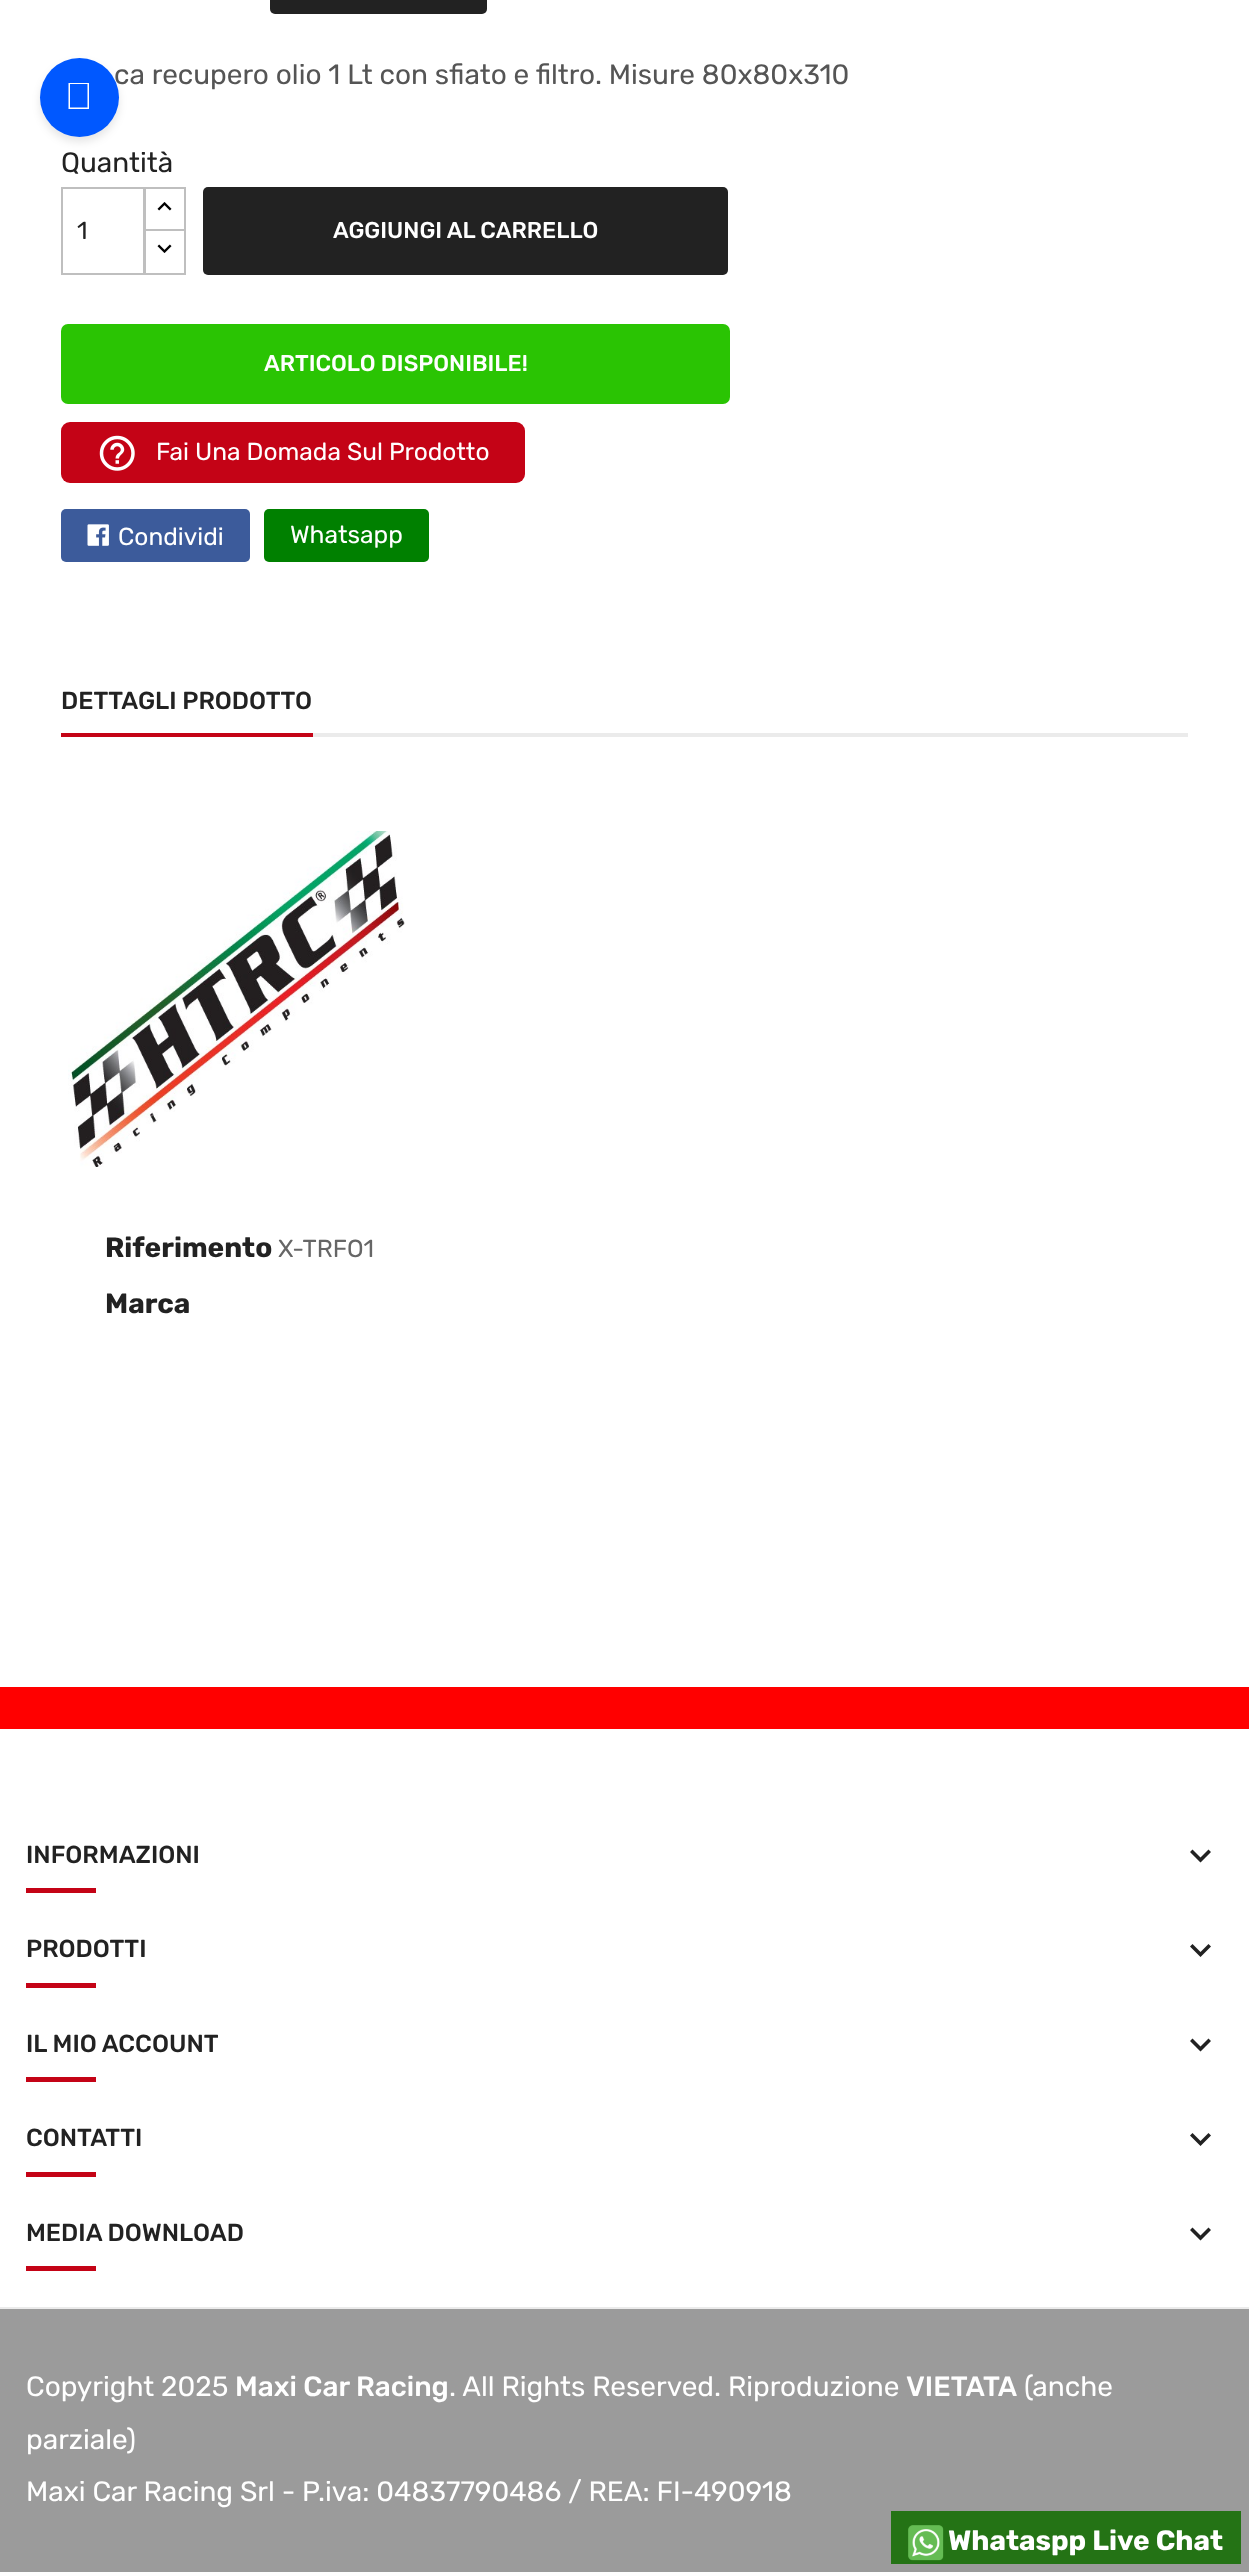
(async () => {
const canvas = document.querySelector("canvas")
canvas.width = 1249
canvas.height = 2572
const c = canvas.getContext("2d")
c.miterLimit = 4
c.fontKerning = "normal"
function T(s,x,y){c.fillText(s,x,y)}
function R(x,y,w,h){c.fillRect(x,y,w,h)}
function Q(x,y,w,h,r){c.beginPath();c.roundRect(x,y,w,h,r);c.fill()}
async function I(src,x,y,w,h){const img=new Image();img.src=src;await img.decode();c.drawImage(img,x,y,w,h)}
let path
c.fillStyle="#fff"
R(0,0,1249,2572)
c.fillStyle="#0000001a"
c.filter="blur(4.5px)"
c.beginPath()
c.roundRect(40,63,79,79,39.5)
c.fill()
c.filter="none"
c.font="28px Rubik"
c.fillStyle="#555"
T("ca recupero olio 1 Lt con sfiato e filtro. Misure 80x80x310",114,84)
c.fillStyle="#0058ff"
c.beginPath()
c.arc(79.5,97.5,39.5,0,7)
c.fill()
c.fillStyle="#fff"
path = new Path2D("M68.5 83h20.5v26h-20.5zm1.5 1v23.5h17.5v-23.5z")
c.fill(path)
c.fillStyle="#222"
Q(270,-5,217,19,5)
T("Quantità",61,172)
c.strokeStyle="#bfbfbf"
c.lineWidth=2
c.strokeRect(145,188,40,44)
c.fillStyle="#fff"
R(146,231,38,2)
c.strokeRect(145,230,40,44)
c.strokeRect(62,188,82,86)
c.font="24.5px Rubik"
c.fillStyle="#222"
T("1",77,239)
await I("1.png",157,202,15,9)
await I("2.png",157,244,15,9)
Q(203,187,525,88,5)
c.font="500 22.75px Rubik"
c.fillStyle="#fff"
T("AGGIUNGI AL CARRELLO",333,238)
c.fillStyle="#2ac403"
Q(61,324,669,80,7)
c.fillStyle="#fff"
T("ARTICOLO DISPONIBILE!",264,371)
c.fillStyle="#c40316"
Q(61,422,464,61,9)
await I("3.png",99,435,36,36)
c.font="24.5px Rubik"
c.fillStyle="#fff"
T("Fai Una Domada Sul Prodotto",156,460)
c.fillStyle="#3c5b9b"
Q(61,509,189,53,5)
await I("4.png",87,524,22,22)
c.fillStyle="#fff"
T("Condividi",118,545)
c.fillStyle="#008000"
Q(264,509,165,53,5)
c.fillStyle="#fff"
T("Whatsapp",290,543)
c.fillStyle="#ebebeb"
R(313,733,875,4)
c.font="500 24.5px Rubik"
c.fillStyle="#222"
T("DETTAGLI PRODOTTO",61,709)
c.fillStyle="#c40316"
R(61,733,252,4)
await I("5.png",68,831,337,336)
c.font="bold 28px Rubik"
c.fillStyle="#222"
T("Riferimento",105,1257)
c.font="24.5px Rubik"
c.fillStyle="#666"
T("X-TRFO1",278,1257)
c.font="bold 28px Rubik"
c.fillStyle="#222"
T("Marca",105,1313)
c.fillStyle="#f00"
R(0,1687,1249,42)
c.font="500 24.5px Rubik"
c.fillStyle="#222"
T("INFORMAZIONI",26,1863)
c.fillStyle="#c40316"
R(26,1888,70,5)
c.fillStyle="#222"
path = new Path2D("M1192.5 1849.5l8 8l8-8l2.5 2.5l-10.5 10.5l-10.5-10.5z")
c.fill(path)
T("PRODOTTI",26,1957)
c.fillStyle="#c40316"
R(26,1983,70,5)
c.fillStyle="#222"
path = new Path2D("M1192.5 1944l8 8l8-8l2.5 2.5l-10.5 10.5l-10.5-10.5z")
c.fill(path)
T("IL MIO ACCOUNT",26,2052)
c.fillStyle="#c40316"
R(26,2077,70,5)
c.fillStyle="#222"
path = new Path2D("M1192.5 2038.5l8 8l8-8l2.5 2.5l-10.5 10.5l-10.5-10.5z")
c.fill(path)
T("CONTATTI",26,2146)
c.fillStyle="#c40316"
R(26,2172,70,5)
c.fillStyle="#222"
path = new Path2D("M1192.5 2133l8 8l8-8l2.5 2.5l-10.5 10.5l-10.5-10.5z")
c.fill(path)
T("MEDIA DOWNLOAD",26,2241)
c.fillStyle="#c40316"
R(26,2266,70,5)
c.fillStyle="#222"
path = new Path2D("M1192.5 2227.5l8 8l8-8l2.5 2.5l-10.5 10.5l-10.5-10.5z")
c.fill(path)
c.fillStyle="#9b9b9b"
R(0,2309,1249,263)
c.fillStyle="#247315"
R(891,2511,350,53)
await I("6.png",908,2525,36,36)
c.font="bold 28px Rubik"
c.fillStyle="#fff"
T("Whataspp Live Chat",948,2550)
c.fillStyle="#ebebeb"
R(0,2307,1249,2)
c.font="28px Rubik"
c.fillStyle="#fff"
T("Copyright 2025",26,2396)
c.font="500 28px Rubik"
T("Maxi Car Racing",235,2396)
c.font="28px Rubik"
T(". All Rights Reserved. Riproduzione",449,2396)
c.font="500 28px Rubik"
T("VIETATA",906,2396)
c.font="28px Rubik"
T("(anche",1024,2396)
T("parziale)",26,2449)
T("Maxi Car Racing Srl - P.iva: 04837790486 / REA: FI-490918",26,2501)
})()
